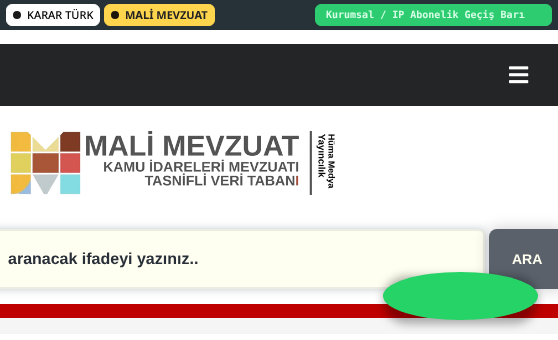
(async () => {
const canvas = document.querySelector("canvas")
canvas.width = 558
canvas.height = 340
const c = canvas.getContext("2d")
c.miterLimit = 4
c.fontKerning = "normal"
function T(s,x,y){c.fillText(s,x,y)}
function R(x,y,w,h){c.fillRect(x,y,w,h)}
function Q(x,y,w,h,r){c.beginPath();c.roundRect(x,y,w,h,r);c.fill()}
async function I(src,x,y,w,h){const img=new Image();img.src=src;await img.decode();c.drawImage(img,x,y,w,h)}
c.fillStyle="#fff"
R(0,0,558,340)
c.fillStyle="#263238"
R(0,0,558,30)
c.fillStyle="#fff"
c.beginPath()
c.roundRect(6.5,4.5,93,21,5.5)
c.fill()
c.strokeStyle="#fff"
c.stroke()
c.fillStyle="#1a1a1a"
c.beginPath()
c.arc(17,15,4,0,7)
c.fill()
c.font="500 11px Noto Sans"
c.fillStyle="#000"
T("KARAR TÜRK",27,19)
c.fillStyle="#ffd54d"
c.beginPath()
c.roundRect(104.5,4.5,110,21,5.5)
c.fill()
c.strokeStyle="#ffd54d"
c.stroke()
c.fillStyle="#1a1508"
c.beginPath()
c.arc(115,15,4,0,7)
c.fill()
c.font="bold 11px Noto Sans"
c.fillStyle="#222"
T("MALİ MEVZUAT",125,19)
c.fillStyle="#2ecc71"
c.beginPath()
c.roundRect(315.5,4.5,236,21,5.5)
c.fill()
c.strokeStyle="#2ecc71"
c.stroke()
c.font="bold 10px DejaVu Sans Mono"
c.fillStyle="#d6ffe6"
T("Kurumsal / IP Abonelik Geçiş Barı",326,18)
c.fillStyle="#242526"
R(0,44,558,62)
await I("1.png",509,66,20,18)
await I("2.png",10,131,326,64)
c.fillStyle="#34495e4d"
c.filter="blur(4px)"
c.beginPath()
c.roundRect(-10,229,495,60,6)
c.fill()
c.filter="none"
c.fillStyle="#fffff1"
c.beginPath()
c.roundRect(-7,230,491,58,5)
c.fill()
c.strokeStyle="#ebede2"
c.lineWidth=2
c.stroke()
c.font="bold 16px Liberation Sans"
c.fillStyle="#292f38"
T("aranacak ifadeyi yazınız..",8,264)
c.fillStyle="#bf0000"
R(0,304,558,14)
c.fillStyle="#00000033"
c.filter="blur(7.5px)"
c.beginPath()
c.roundRect(489,229,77,60,8)
c.fill()
c.filter="none"
c.fillStyle="#5a616b"
Q(489,229,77,60,8)
c.font="bold 14px Liberation Sans"
c.fillStyle="#fffff1"
T("ARA",512,264)
c.fillStyle="#f5f5f5"
R(0,318,558,16)
c.fillStyle="#0000004d"
c.filter="blur(4px)"
c.beginPath()
c.roundRect(383,276,155,48,24)
c.fill()
c.filter="none"
c.fillStyle="#25d366"
c.beginPath()
c.ellipse(460.5,296,77.5,24,0,0,7)
c.fill()
})()
